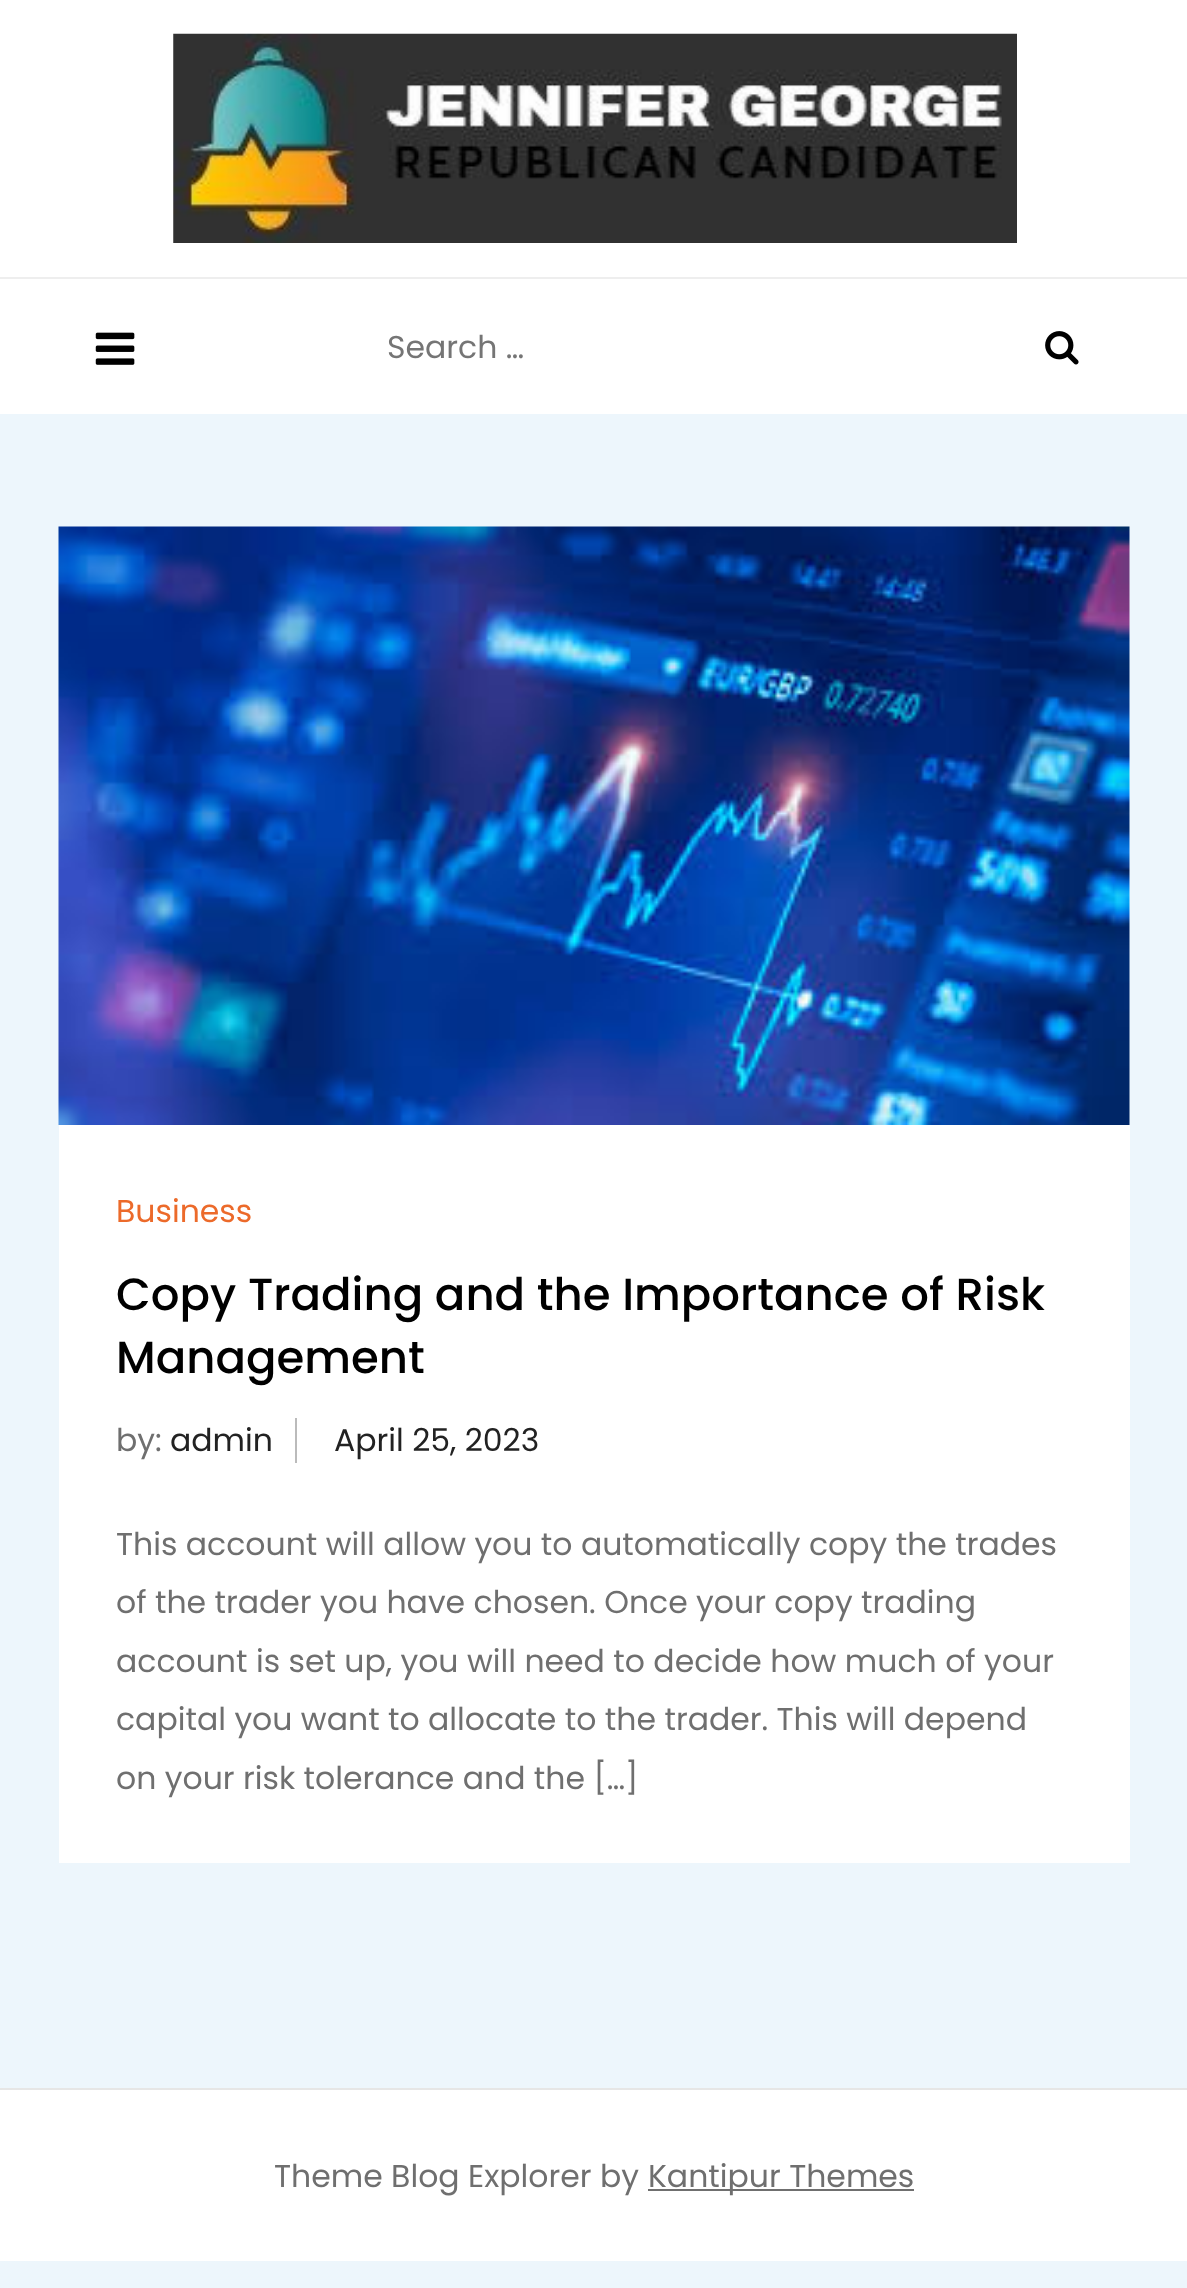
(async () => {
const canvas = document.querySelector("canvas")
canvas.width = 1187
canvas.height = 2288
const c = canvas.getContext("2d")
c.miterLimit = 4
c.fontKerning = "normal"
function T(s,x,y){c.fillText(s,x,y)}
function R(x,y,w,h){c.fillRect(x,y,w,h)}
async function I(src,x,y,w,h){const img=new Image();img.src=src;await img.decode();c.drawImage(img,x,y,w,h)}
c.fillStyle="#edf6fc"
R(0,0,1187,2288)
c.fillStyle="#fff"
R(0,0,1187,414)
c.fillStyle="#eee"
R(0,277,1187,2)
await I("1.png",173,33,844,210)
await I("2.png",95,332,40,33)
c.font="31.5px Poppins"
c.fillStyle="#757575"
T("Search …",387,358)
await I("3.png",1045,331,34,34)
await I("4.png",58,526,1072,599)
c.fillStyle="#fff"
R(59,1125,1071,738)
c.fillStyle="#ec6a2a"
T("Business",116,1222)
c.font="500 45px Poppins"
c.fillStyle="#000"
T("Copy Trading and the Importance of Risk",116,1310)
T("Management",116,1373)
c.font="31.5px Poppins"
c.fillStyle="#6f6f6f"
T("by:",116,1451)
c.fillStyle="#222"
T("admin",170,1451)
c.fillStyle="#bbb"
R(295,1418,2,45)
c.fillStyle="#222"
T("April 25, 2023",334,1451)
c.fillStyle="#6f6f6f"
T("This account will allow you to automatically copy the trades",116,1555)
T("of the trader you have chosen. Once your copy trading",116,1613)
T("account is set up, you will need to decide how much of your",116,1672)
T("capital you want to allocate to the trader. This will depend",116,1730)
T("on your risk tolerance and the […]",116,1789)
c.fillStyle="#fff"
R(0,2090,1187,171)
c.fillStyle="#e6e6e6"
R(0,2088,1187,2)
c.fillStyle="#6f6f6f"
T("Theme Blog Explorer by",274,2187)
R(648,2189,266,2)
T("Kantipur Themes",648,2187)
})()
